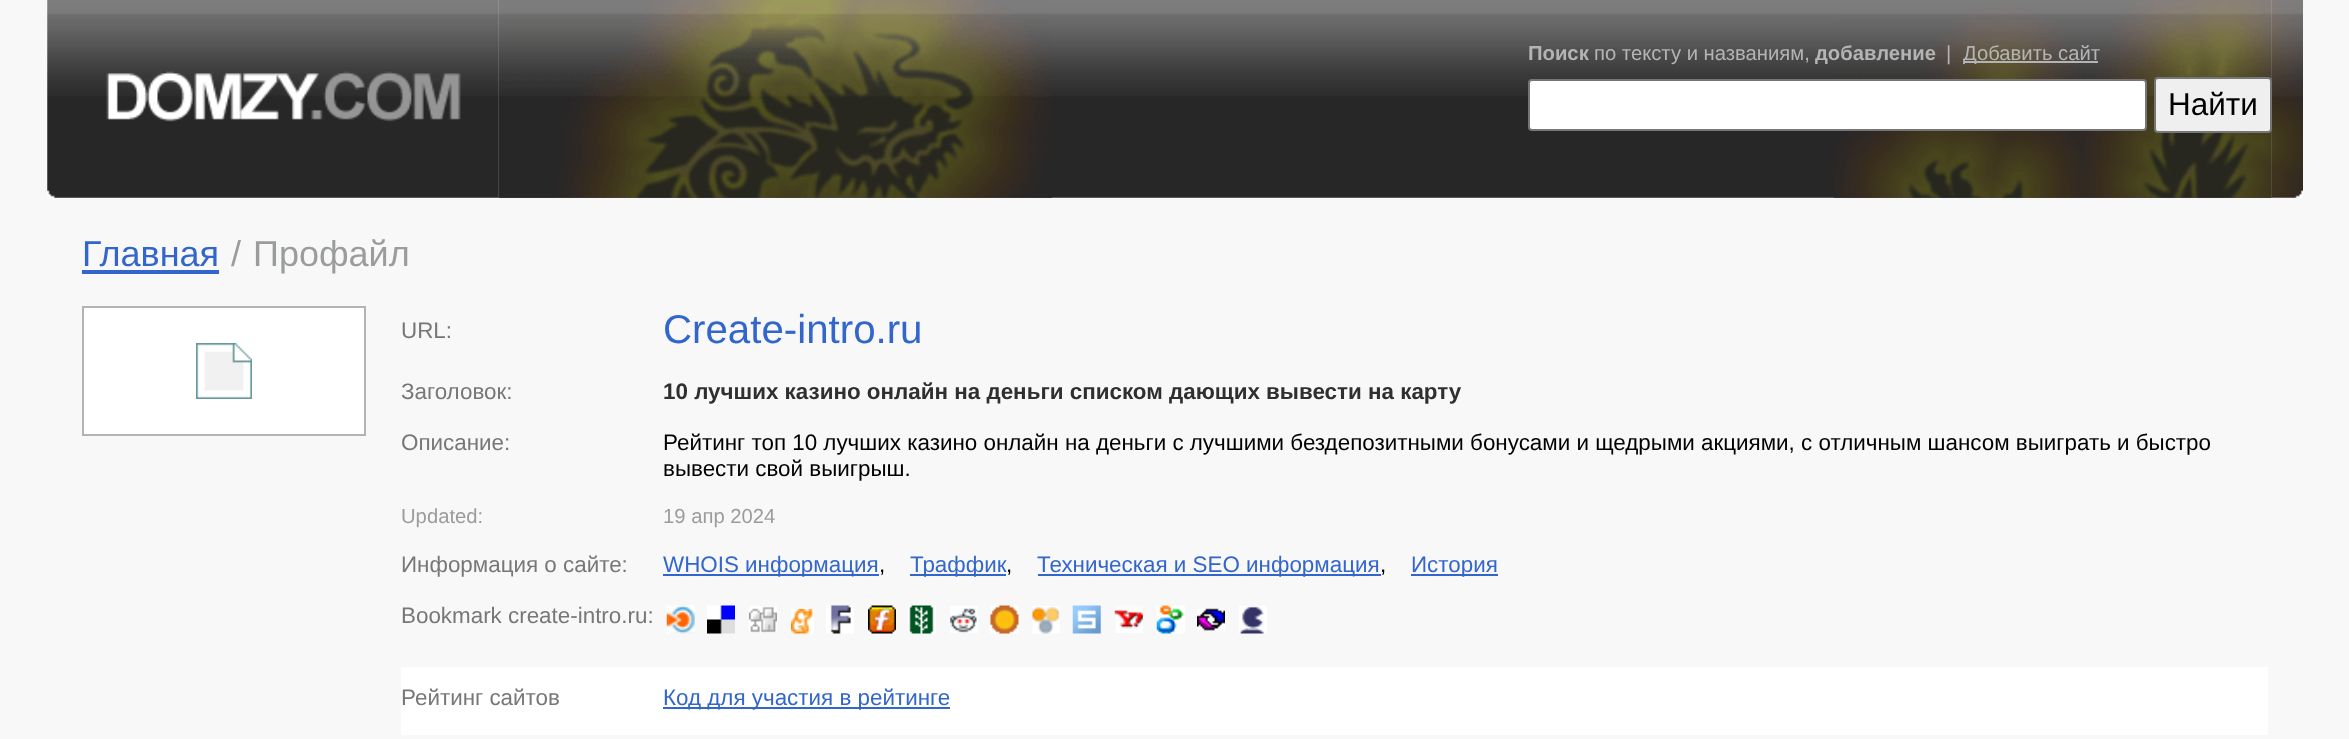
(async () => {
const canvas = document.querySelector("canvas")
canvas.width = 2349
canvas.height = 739
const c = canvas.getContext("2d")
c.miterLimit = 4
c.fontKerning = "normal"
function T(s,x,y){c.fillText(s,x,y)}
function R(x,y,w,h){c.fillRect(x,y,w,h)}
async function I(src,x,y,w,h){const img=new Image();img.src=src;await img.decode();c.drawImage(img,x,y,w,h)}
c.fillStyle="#f8f8f8"
R(0,0,2349,739)
await I("2.png",498,0,1774,198)
await I("3.png",498,0,554,198)
await I("1.png",47,0,452,198)
await I("4.png",1834,0,438,198)
c.font="bold 20.25px Liberation Sans"
c.fillStyle="#b4b4b4"
T("Поиск",1528,60)
c.font="20.25px Liberation Sans"
T("по тексту и названиям,",1594,60)
c.font="bold 20.25px Liberation Sans"
T("добавление",1815,60)
c.font="20.25px Liberation Sans"
T("|",1946,60)
R(1964,61,134,2)
T("Добавить сайт",1963,60)
c.fillStyle="#fff"
c.beginPath()
c.roundRect(1529,80,617,50,3)
c.fill()
c.strokeStyle="#767676"
c.lineWidth=2
c.stroke()
await I("5.png",2271,0,32,198)
c.fillStyle="#efefef"
c.beginPath()
c.roundRect(2155,78,116,54,3)
c.fill()
c.stroke()
c.font="31.5px Liberation Sans"
c.fillStyle="#000"
T("Найти",2168,115)
c.font="36px Liberation Sans"
c.fillStyle="#36c"
T("Главная",82,266)
R(82,270,137,4)
c.fillStyle="#9a9c9e"
T("/",231,266)
T("Профайл",253,266)
c.fillStyle="#fff"
c.beginPath()
c.rect(83,307,282,128)
c.fill()
c.strokeStyle="#b3b3b3"
c.stroke()
await I("6.png",196,343,56,56)
c.font="22.4px Liberation Sans"
c.fillStyle="#777"
T("URL:",401,338)
c.font="40.25px Liberation Sans"
c.fillStyle="#36c"
T("Create-intro.ru",663,343)
c.font="22.4px Liberation Sans"
c.fillStyle="#777"
T("Заголовок:",401,399)
c.font="bold 22.4px Liberation Sans"
c.fillStyle="#2f2f2f"
T("10 лучших казино онлайн на деньги списком дающих вывести на карту",663,399)
c.font="22.4px Liberation Sans"
c.fillStyle="#777"
T("Описание:",401,450)
c.fillStyle="#000"
T("Рейтинг топ 10 лучших казино онлайн на деньги с лучшими бездепозитными бонусами и щедрыми акциями, с отличным шансом выиграть и быстро",663,450)
T("вывести свой выигрыш.",663,476)
c.font="20.25px Liberation Sans"
c.fillStyle="#9a9c9e"
T("Updated:",401,523)
T("19 апр 2024",663,523)
c.font="22.4px Liberation Sans"
c.fillStyle="#777"
T("Информация о сайте:",401,572)
c.fillStyle="#36c"
R(663,574,216,2)
T("WHOIS информация",663,572)
c.fillStyle="#000"
T(",",879,572)
c.fillStyle="#36c"
R(910,574,96,2)
T("Траффик",910,572)
c.fillStyle="#000"
T(",",1006,572)
c.fillStyle="#36c"
R(1038,574,343,2)
T("Техническая и SEO информация",1037,572)
c.fillStyle="#000"
T(",",1380,572)
c.fillStyle="#36c"
R(1411,574,87,2)
T("История",1411,572)
c.fillStyle="#777"
T("Bookmark create-intro.ru:",401,623)
await I("7.png",666,605,29,29)
await I("8.png",707,605,28,29)
await I("9.png",749,606,28,27)
await I("10.png",791,609,23,25)
await I("11.png",826,605,28,29)
await I("12.png",868,605,28,29)
await I("13.png",908,605,28,29)
await I("14.png",950,606,28,27)
await I("15.png",990,605,29,29)
await I("16.png",1032,606,28,28)
await I("17.png",1072,605,29,29)
await I("18.png",1114,605,29,28)
await I("19.png",1156,605,29,29)
await I("20.png",1197,608,28,23)
await I("21.png",1239,606,28,28)
c.fillStyle="#fff"
R(401,667,1867,68)
c.fillStyle="#777"
T("Рейтинг сайтов",401,705)
c.fillStyle="#36c"
R(663,707,287,2)
T("Код для участия в рейтинге",663,705)
})()
